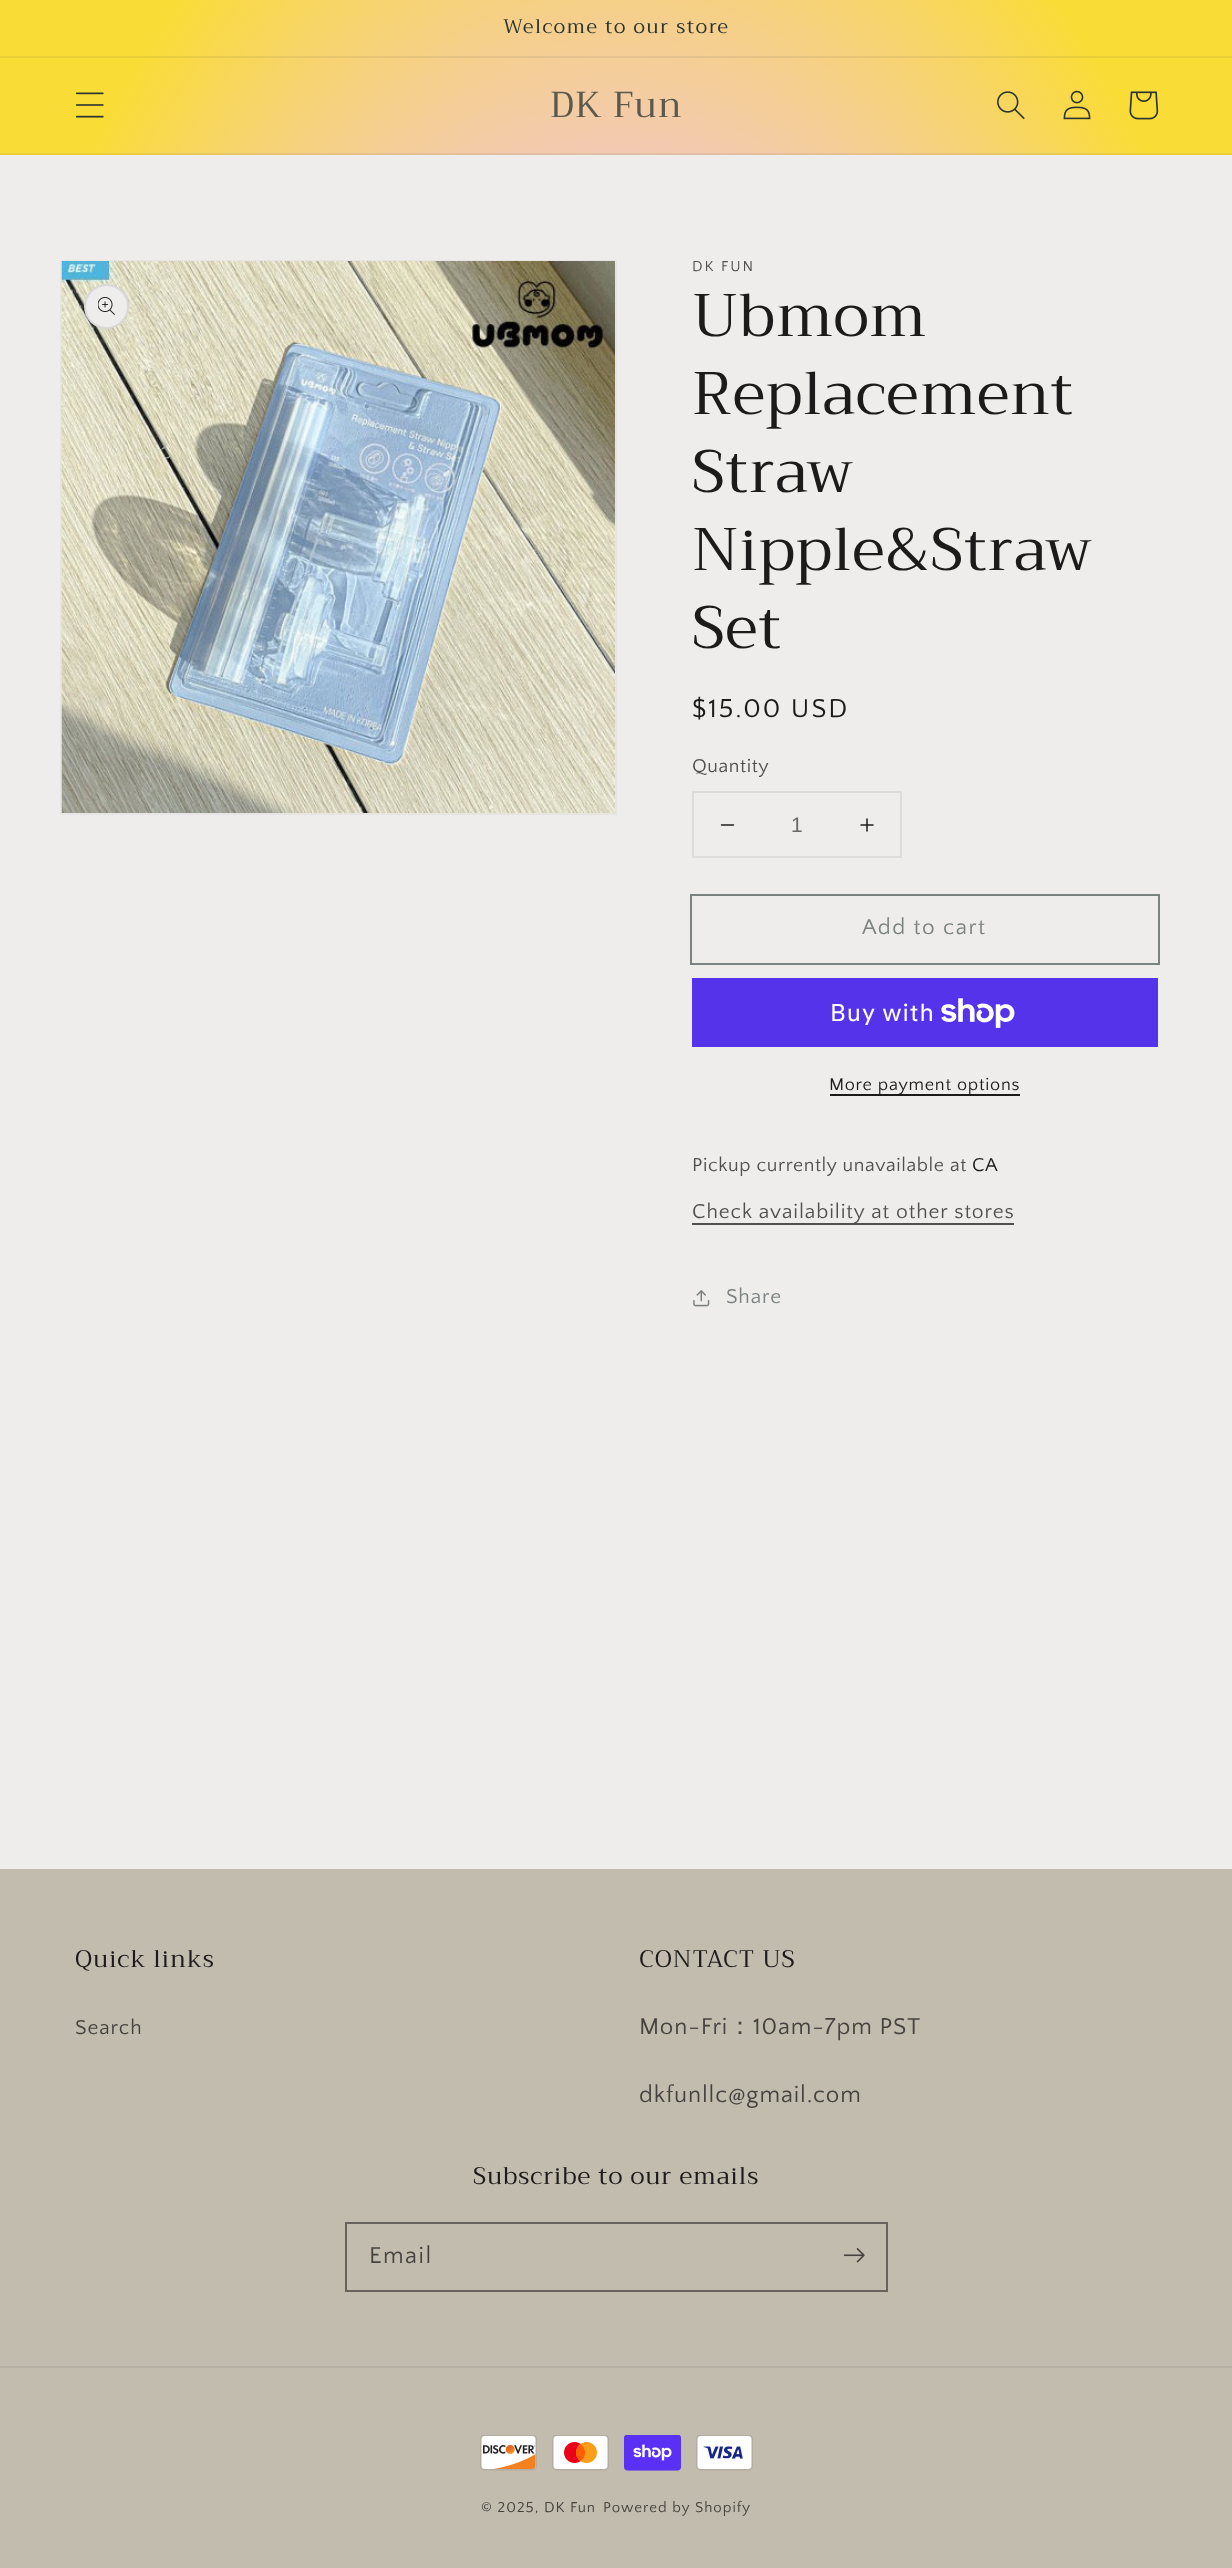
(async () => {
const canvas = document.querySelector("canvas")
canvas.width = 1232
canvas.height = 2568
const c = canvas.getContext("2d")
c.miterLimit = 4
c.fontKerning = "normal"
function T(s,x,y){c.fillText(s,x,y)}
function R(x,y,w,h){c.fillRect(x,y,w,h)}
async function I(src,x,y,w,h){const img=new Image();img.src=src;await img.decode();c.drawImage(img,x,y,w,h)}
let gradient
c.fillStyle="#efecec"
R(0,0,1232,2568)
gradient = c.createRadialGradient(617,616.55,0,617,616.55,872)
gradient.addColorStop(.11,"#fadc36")
gradient.addColorStop(.31,"#f7fa40")
gradient.addColorStop(.49,"#fe6292")
gradient.addColorStop(.6,"#f2c8bd")
gradient.addColorStop(.87,"#fadc36")
c.fillStyle = gradient
c.beginPath()
c.rect(0,0,1232,56)
c.save()
c.clip()
c.scale(1,1816 / 872)
c.fillRect(0,0,1232,1234)
c.restore()
gradient = c.createRadialGradient(617,616.55,0,617,616.55,872)
gradient.addColorStop(.11,"#e9ce35")
gradient.addColorStop(.31,"#e7ea3f")
gradient.addColorStop(.49,"#ed5e8a")
gradient.addColorStop(.6,"#e2bcb2")
gradient.addColorStop(.87,"#e9ce35")
c.fillStyle = gradient
c.beginPath()
c.rect(0,56,1232,1)
c.save()
c.clip()
c.scale(1,1816 / 872)
c.fillRect(0,0,1232,1234)
c.restore()
c.letterSpacing="1.5px"
c.font="19.5px Trirong"
c.fillStyle="#2a332f"
T("Welcome to our store",503,33)
gradient = c.createRadialGradient(617,616.55,0,617,616.55,872)
gradient.addColorStop(.11,"#fadc36")
gradient.addColorStop(.31,"#f7fa40")
gradient.addColorStop(.49,"#fe6292")
gradient.addColorStop(.6,"#f2c8bd")
gradient.addColorStop(.87,"#fadc36")
c.fillStyle = gradient
c.beginPath()
c.rect(0,58,1232,95)
c.save()
c.clip()
c.scale(1,1816 / 872)
c.fillRect(0,0,1232,1234)
c.restore()
gradient = c.createRadialGradient(617,616.55,0,617,616.55,872)
gradient.addColorStop(.11,"#e9ce35")
gradient.addColorStop(.31,"#e7ea3f")
gradient.addColorStop(.49,"#ed5e8a")
gradient.addColorStop(.6,"#e2bcb2")
gradient.addColorStop(.87,"#e9ce35")
c.fillStyle = gradient
c.beginPath()
c.rect(0,57,1232,1)
c.save()
c.clip()
c.scale(1,1816 / 872)
c.fillRect(0,0,1232,1234)
c.restore()
c.beginPath()
c.rect(0,153,1232,2)
c.save()
c.clip()
c.scale(1,1816 / 872)
c.fillRect(0,0,1232,1234)
c.restore()
await I("1.png",75,92,29,26)
c.letterSpacing="0.9px"
c.font="36px Trirong"
c.fillStyle="#5c594c"
T("DK Fun",550,117)
await I("2.png",997,91,28,28)
await I("3.png",1063,90,28,30)
await I("4.png",1129,91,30,29)
c.strokeStyle="#e7e4e4"
c.lineWidth=2
c.strokeRect(61,261,555,553)
await I("5.png",61,261,554,552)
c.fillStyle="#efecec"
c.beginPath()
c.arc(106.5,306.5,22.5,0,7)
c.fill()
c.beginPath()
c.arc(106.5,306.5,21.5,0,7)
c.strokeStyle="#1c1a1a1a"
c.stroke()
await I("6.png",98,297,17,18)
c.letterSpacing="2px"
c.font="15px Quattrocento Sans"
c.fillStyle="#514f4f"
T("DK FUN",692,271)
c.letterSpacing="0.9px"
c.font="60px Trirong"
c.fillStyle="#1c1a1a"
T("Ubmom",692,336)
T("Replacement",692,414)
T("Straw",692,492)
T("Nipple&Straw",692,570)
T("Set",692,648)
c.letterSpacing="2px"
c.font="27px Quattrocento Sans"
T("$15.00 USD",692,717)
c.letterSpacing="0.6px"
c.font="19.5px Quattrocento Sans"
c.fillStyle="#514f4f"
T("Quantity",692,772)
c.strokeStyle="#dedbdb"
c.strokeRect(693,792,208,65)
await I("7.png",720,824,15,2)
c.letterSpacing="0px"
c.font="21px Liberation Sans"
c.fillStyle="#696767"
T("1",791,832)
await I("8.png",860,818,14,14)
c.strokeStyle="#7b8382"
c.strokeRect(691,895,468,69)
c.letterSpacing="1.5px"
c.font="22.5px Quattrocento Sans"
c.fillStyle="#7b8382"
T("Add to cart",862,934)
c.fillStyle="#5433eb"
R(692,978,466,69)
c.letterSpacing="0.9px"
c.font="24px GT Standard"
c.fillStyle="#fff"
T("Buy with",830,1021)
await I("9.png",941,998,74,30)
c.fillStyle="#1c1a1a"
R(830,1094,190,2)
c.letterSpacing="0.75px"
c.font="18px Quattrocento Sans"
T("More payment options",829,1090)
c.letterSpacing="0.6px"
c.font="19.5px Quattrocento Sans"
c.fillStyle="#514f4f"
T("Pickup currently unavailable at",692,1171)
c.fillStyle="#1c1a1a"
T("CA",972,1171)
c.fillStyle="#514f4f"
R(692,1223,322,2)
c.letterSpacing="0.9px"
c.font="21px Quattrocento Sans"
T("Check availability at other stores",692,1218)
await I("10.png",693,1290,17,17)
c.fillStyle="#7b8382"
T("Share",726,1303)
c.fillStyle="#c1bcae"
R(0,1869,1232,699)
c.font="24px Trirong"
c.fillStyle="#1c1a1a"
T("Quick links",75,1967)
c.font="21px Quattrocento Sans"
c.fillStyle="#45433f"
T("Search",75,2034)
c.font="24px Trirong"
c.fillStyle="#1c1a1a"
T("CONTACT US",639,1967)
c.font="24px Quattrocento Sans"
c.fillStyle="#45433f"
T("Mon-Fri",639,2034)
c.font="500 24px WenQuanYi Zen Hei"
T("：",728,2034)
c.font="24px Quattrocento Sans"
T("10am-7pm PST",753,2034)
T("dkfunllc@gmail.com",639,2102)
c.font="24px Trirong"
c.fillStyle="#1c1a1a"
T("Subscribe to our emails",473,2184)
c.strokeStyle="#66635d"
c.strokeRect(346,2223,541,68)
c.letterSpacing="1.5px"
c.font="24px Quattrocento Sans"
c.fillStyle="#45433f"
T("Email",369,2263)
await I("11.png",843,2248,22,15)
c.fillStyle="#b4afa2"
R(0,2366,1232,2)
await I("12.png",480,2435,57,36)
await I("13.png",552,2435,57,36)
await I("14.png",624,2435,57,36)
await I("15.png",696,2435,57,36)
c.letterSpacing="1px"
c.font="15px Quattrocento Sans"
c.fillStyle="#45433f"
T("© 2025, DK Fun",481,2512)
T("Powered by Shopify",603,2512)
})()
